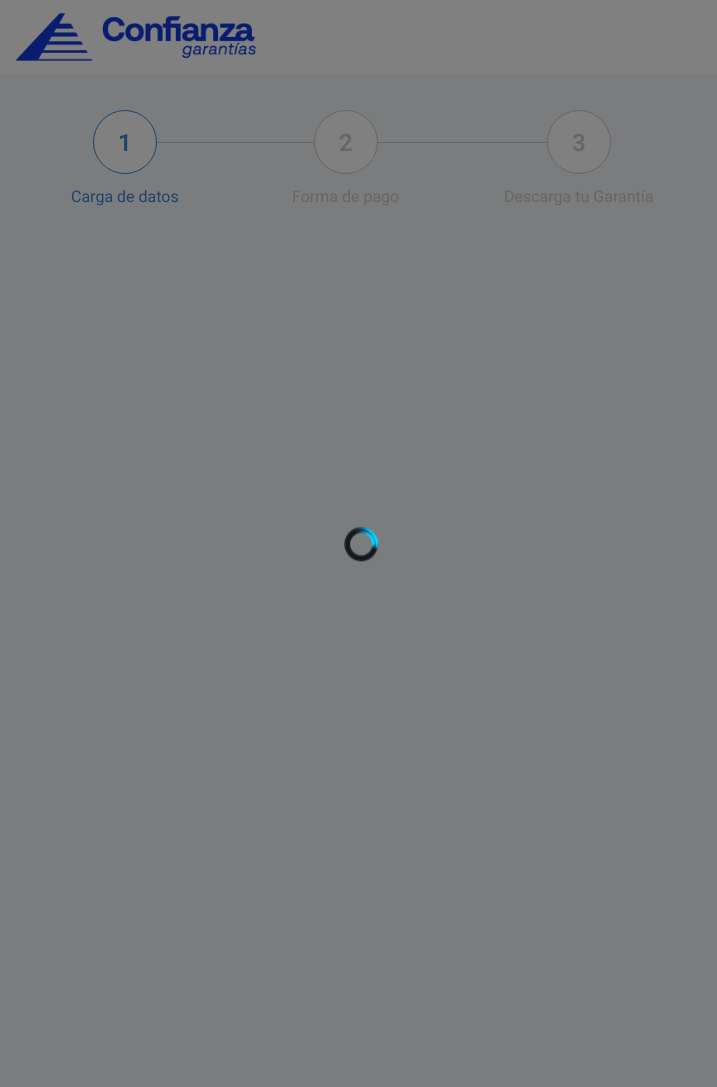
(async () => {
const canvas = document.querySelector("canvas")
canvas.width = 717
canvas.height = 1087
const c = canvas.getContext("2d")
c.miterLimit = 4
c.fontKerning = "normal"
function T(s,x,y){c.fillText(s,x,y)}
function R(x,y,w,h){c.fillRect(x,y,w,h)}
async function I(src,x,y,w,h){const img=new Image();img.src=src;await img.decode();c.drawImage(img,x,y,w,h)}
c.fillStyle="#808080"
R(0,0,717,1087)
await I("1.png",16,13,240,48)
c.fillStyle="#7b7c7d"
R(0,74,717,1013)
c.fillStyle="#666"
R(156,142,159,1)
c.fillStyle="#808080"
c.beginPath()
c.arc(125,142,31.5,0,7)
c.fill()
c.strokeStyle="#21426c"
c.stroke()
c.font="600 24px Roboto"
c.fillStyle="#21426c"
T("1",118,151)
c.font="16px Roboto"
T("Carga de datos",71,202)
c.fillStyle="#666"
R(377,142,171,1)
c.fillStyle="#808080"
c.beginPath()
c.arc(346,142,31.5,0,7)
c.fill()
c.strokeStyle="#666"
c.stroke()
c.font="600 24px Roboto"
c.fillStyle="#666"
T("2",339,151)
c.font="16px Roboto"
T("Forma de pago",292,202)
c.fillStyle="#808080"
c.beginPath()
c.arc(579,142,31.5,0,7)
c.fill()
c.stroke()
c.font="600 24px Roboto"
c.fillStyle="#666"
T("3",572,151)
c.font="16px Roboto"
T("Descarga tu Garantía",504,202)
await I("2.png",344,526,35,36)
})()
